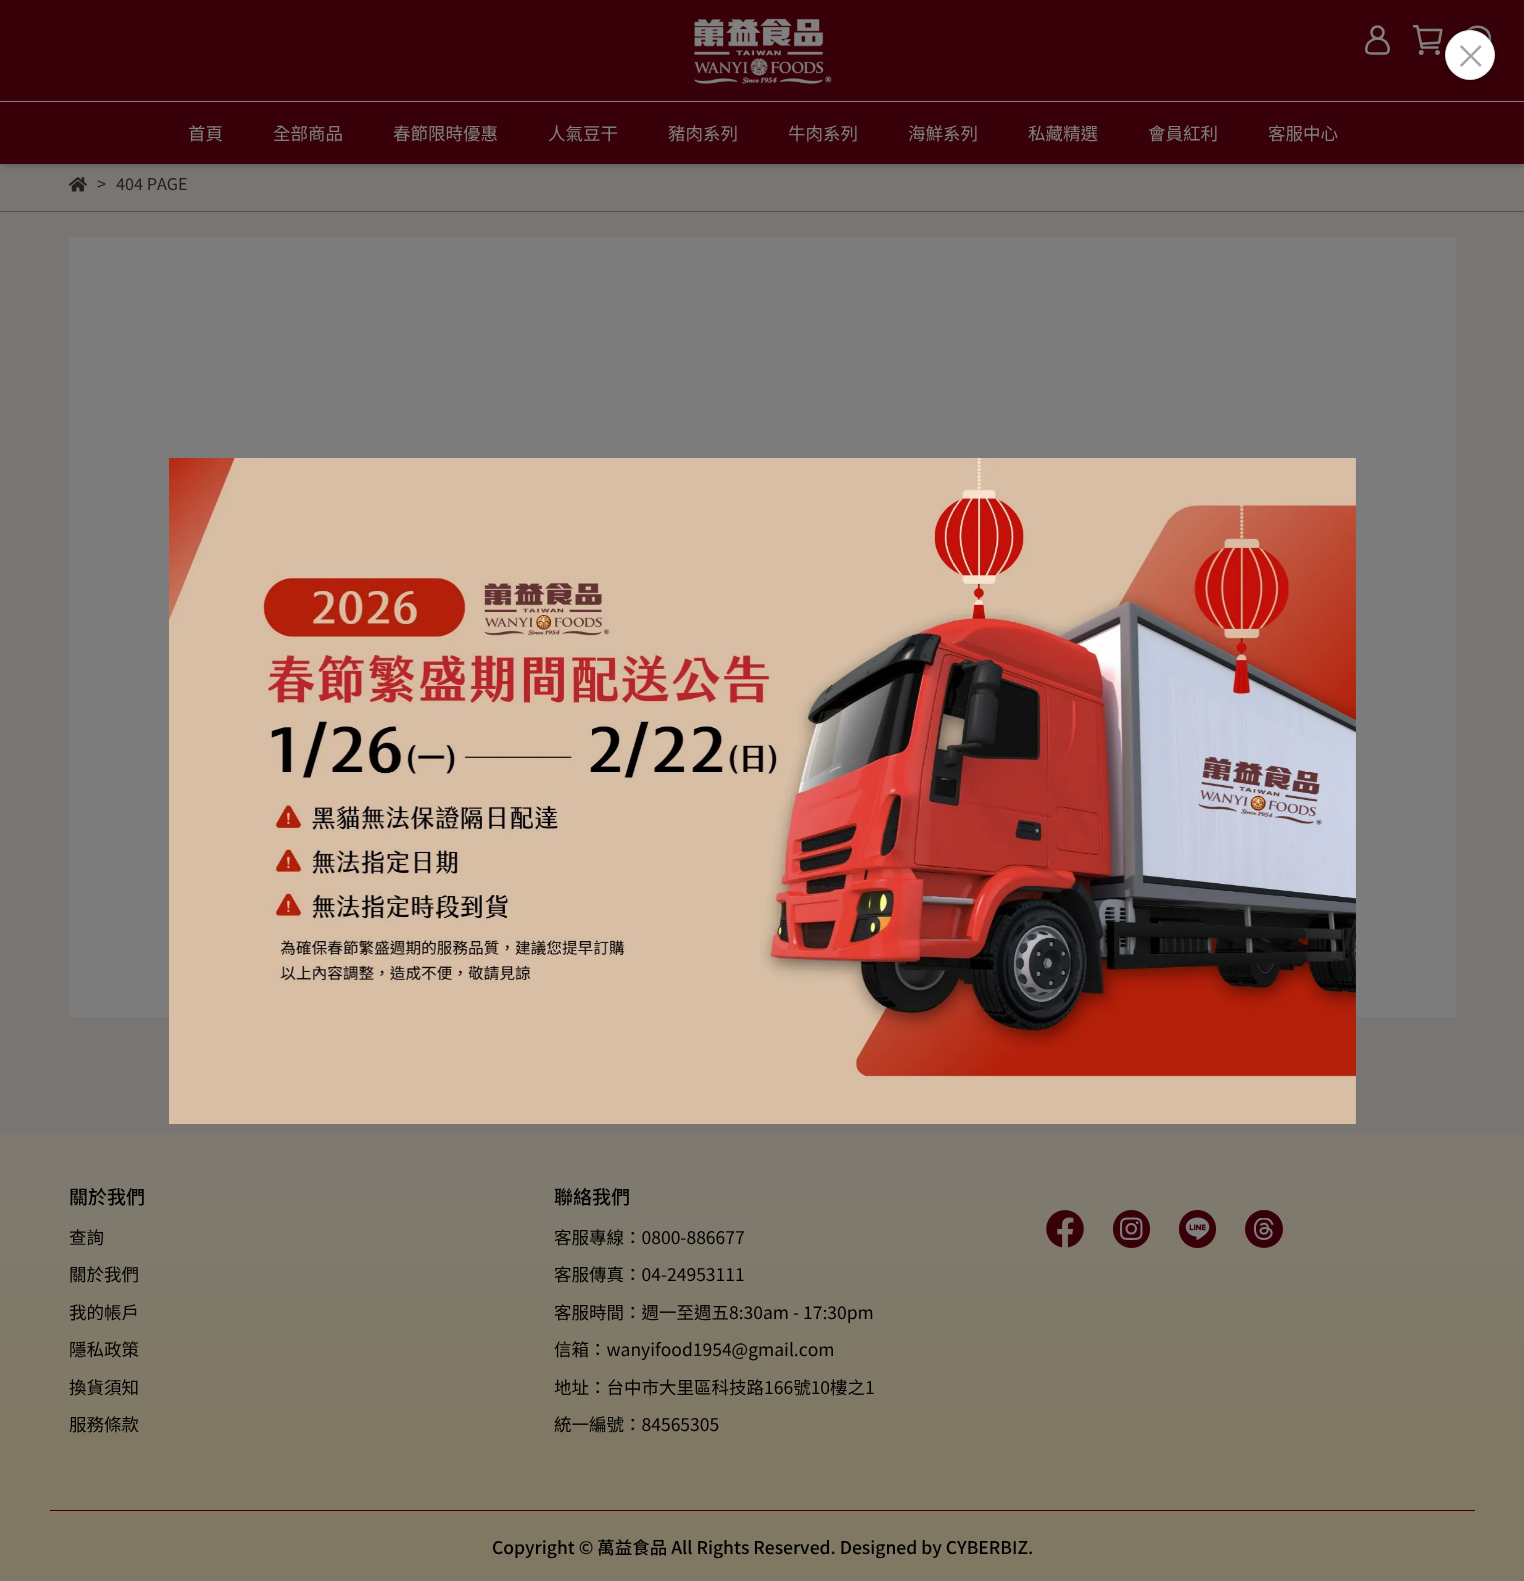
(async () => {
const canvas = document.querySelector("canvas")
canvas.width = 1524
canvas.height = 1581
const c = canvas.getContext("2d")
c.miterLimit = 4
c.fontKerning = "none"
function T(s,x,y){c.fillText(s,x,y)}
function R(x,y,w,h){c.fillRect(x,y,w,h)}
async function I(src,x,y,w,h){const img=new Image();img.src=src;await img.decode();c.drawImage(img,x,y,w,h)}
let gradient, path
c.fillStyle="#787573"
R(0,0,1524,1581)
c.fillStyle="#380008"
R(0,0,1524,101)
await I("3.png",1413,25,30,30)
path = new Path2D("M1490 39c0 16-25 16-25 0c0-16.5 25-16.5 25 0z")
c.strokeStyle="#808080"
c.lineWidth=2.5
c.lineCap="round"
c.lineJoin="round"
c.stroke(path)
c.fillStyle="#00000080"
c.filter="blur(2.5px)"
c.beginPath()
c.roundRect(1445,30,50,50,25)
c.fill()
c.filter="none"
c.fillStyle="#fff"
c.beginPath()
c.arc(1470,55,24.5,0,7)
c.fill()
c.strokeStyle="#e2e2e2"
c.lineWidth=1
c.stroke()
c.fillStyle="#a3a3a3"
path = new Path2D("M1461.5 45l20 20l-1.5 2l-20-20z")
c.fill(path)
path = new Path2D("M1460 65l20-20l1.5 2l-20 20z")
c.fill(path)
await I("5.png",68,237,1389,780)
await I("1.png",169,458,1187,666)
await I("2.png",694,18,138,66)
c.beginPath()
c.arc(1377.5,32.5,6,0,7)
c.strokeStyle="#808080"
c.lineWidth=2.5
c.stroke()
path = new Path2D("M1384.5 53.5h-9.5c-5.5 0-10 .5-8.5-6.5c.5-3.5 3.5-6 6.5-7.5c14.5-5.5 20.5 14.5 11.5 14z")
c.lineCap="butt"
c.lineJoin="miter"
c.stroke(path)
c.fillStyle="#00000033"
c.filter="blur(2.5px)"
c.beginPath()
c.rect(3,109,1520,57)
c.fill()
c.filter="none"
c.fillStyle="#380008"
R(0,102,1524,62)
c.fillStyle="#808080"
R(0,101,1524,1)
c.font="17.5px Noto Sans TC"
T("首頁",188,140)
T("全部商品",273,140)
T("春節限時優惠",393,140)
T("人氣豆干",548,140)
T("豬肉系列",668,140)
T("牛肉系列",788,140)
T("海鮮系列",908,140)
T("私藏精選",1028,140)
T("會員紅利",1148,140)
T("客服中心",1268,140)
c.fillStyle="#564d4d"
R(0,211,1524,1)
await I("4.png",68,177,19,15)
c.font="16.25px Noto Sans TC"
c.fillStyle="#202020"
T(">",97,190)
T("404 PAGE",116,190)
gradient = c.createLinearGradient(763,1135,763,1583)
gradient.addColorStop(.11,"#7f7a6f")
gradient.addColorStop(.72,"#807863")
c.fillStyle = gradient
R(0,1135,1524,446)
c.font="500 19px Noto Sans TC"
c.fillStyle="#000"
T("關於我們",69,1204)
c.font="17.5px Noto Sans TC"
T("查詢",69,1244)
T("關於我們",69,1281)
T("我的帳戶",69,1319)
T("隱私政策",69,1356)
T("換貨須知",69,1394)
T("服務條款",69,1431)
c.font="500 19px Noto Sans TC"
T("聯絡我們",554,1204)
c.font="17.5px Noto Sans TC"
T("客服專線：0800-886677",554,1244)
T("客服傳真：04-24953111",554,1281)
T("客服時間：週一至週五8:30am - 17:30pm",554,1319)
T("信箱：wanyifood1954@gmail.com",554,1356)
T("地址：台中市大里區科技路166號10樓之1",554,1394)
T("統一編號：84565305",554,1431)
await I("6.png",1046,1210,38,38)
await I("7.png",1113,1210,37,38)
await I("8.png",1179,1210,37,38)
c.fillStyle="#370008"
c.beginPath()
c.arc(1264,1229,19,0,7)
c.fill()
await I("9.png",1253,1218,21,22)
c.fillStyle="#787878"
R(0,1493,1524,1)
c.fillStyle="#380008"
R(50,1510,1425,1)
c.font="500 17.5px Noto Sans TC"
c.fillStyle="#000"
T("Copyright © 萬益食品 All Rights Reserved. Designed by CYBERBIZ.",492,1554)
})()
